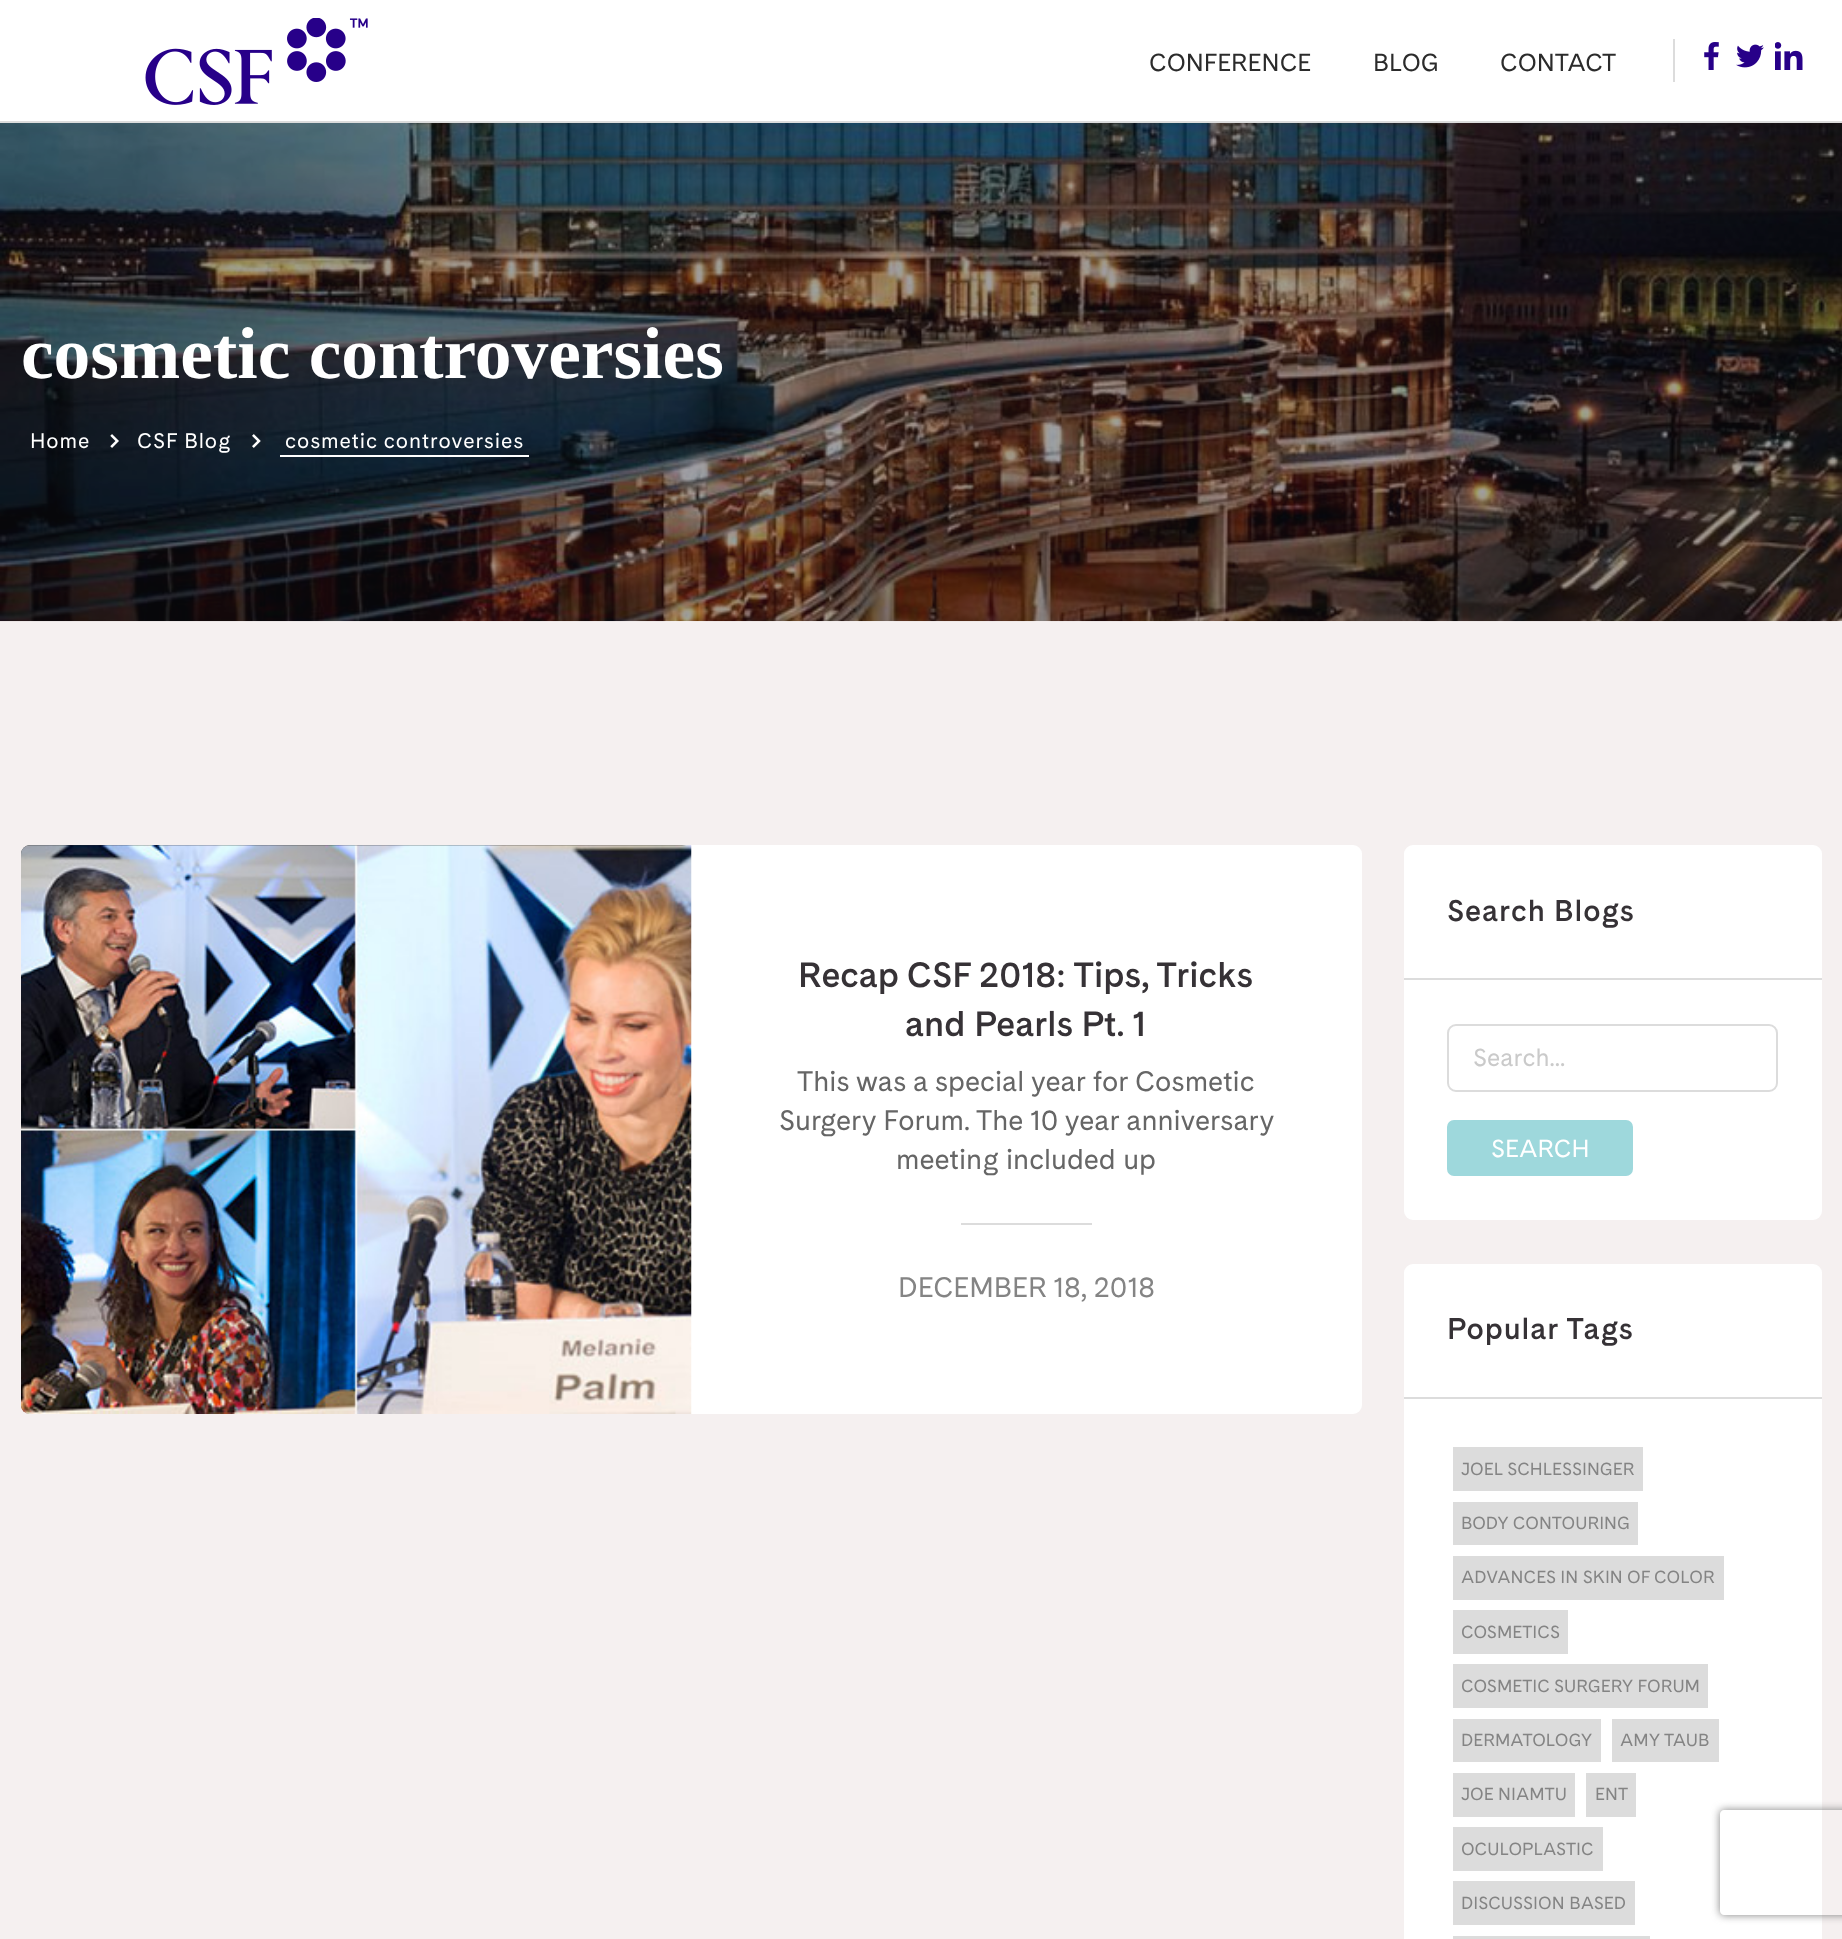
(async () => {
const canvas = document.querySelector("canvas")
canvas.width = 1842
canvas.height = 1939
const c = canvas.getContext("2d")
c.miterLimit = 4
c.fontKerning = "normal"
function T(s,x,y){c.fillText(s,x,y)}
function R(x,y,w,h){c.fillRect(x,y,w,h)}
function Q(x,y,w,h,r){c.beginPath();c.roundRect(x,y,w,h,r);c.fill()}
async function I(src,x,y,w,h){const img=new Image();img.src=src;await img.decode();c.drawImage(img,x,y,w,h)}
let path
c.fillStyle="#f5f0f0"
R(0,0,1842,1939)
c.fillStyle="#fff"
R(0,0,1842,121)
c.fillStyle="#dcdcdc"
R(0,121,1842,2)
await I("1.png",145,18,223,87)
c.font="24.5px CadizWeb"
c.fillStyle="#2b2b2b"
T("CONFERENCE",1149,71)
T("BLOG",1373,71)
T("CONTACT",1500,71)
c.fillStyle="#dcdcdc"
R(1673,39,2,43)
await I("2.png",1704,42,15,28)
await I("3.png",1736,44,28,24)
await I("4.png",1775,42,28,28)
c.fillStyle="#121219"
R(0,123,1842,498)
await I("5.png",0,123,1842,499)
c.font="bold 73.5px Liberation Serif"
c.fillStyle="#fff"
T("cosmetic controversies",21,378)
c.letterSpacing="0.9px"
c.font="21px CadizWeb"
T("Home",30,448)
await I("6.png",110,434,9,14)
T("CSF Blog",137,448)
await I("7.png",252,434,9,14)
T("cosmetic controversies",285,448)
R(280,455,249,2)
Q(21,845,1341,569,9)
c.fillStyle="#2b2b2b"
Q(21,845,670,569,9)
await I("8.png",21,845,671,569)
c.letterSpacing="0px"
c.font="600 35px CadizWeb"
c.fillStyle="#363236"
T("Recap CSF 2018: Tips, Tricks",798,987)
T("and Pearls Pt. 1",905,1036)
c.font="28px CadizWeb"
c.fillStyle="#666"
T("This was a special year for Cosmetic",797,1091)
T("Surgery Forum. The 10 year anniversary",779,1130)
T("meeting included up",896,1169)
c.fillStyle="#dcdcdc"
R(961,1223,131,2)
c.fillStyle="#848484"
T("DECEMBER 18, 2018",898,1297)
c.fillStyle="#fff"
Q(1404,845,418,375,9)
c.fillStyle="#dcdcdc"
R(1404,978,418,2)
c.letterSpacing="0.9px"
c.font="600 29.75px CadizWeb"
c.fillStyle="#363236"
T("Search Blogs",1447,921)
c.beginPath()
c.roundRect(1448,1025,329,66,8)
c.strokeStyle="#dcdcdc"
c.lineWidth=2
c.stroke()
c.letterSpacing="0px"
c.font="24.5px CadizWeb"
c.fillStyle="#cacaca"
T("Search...",1473,1066)
c.fillStyle="#9ed8dc"
c.beginPath()
c.roundRect(1448,1121,184,54,6)
c.fill()
c.strokeStyle="#9ed8dc"
c.stroke()
c.fillStyle="#fff"
T("SEARCH",1491,1157)
Q(1404,1264,418,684,9)
c.fillStyle="#dcdcdc"
R(1404,1397,418,2)
c.letterSpacing="0.9px"
c.font="600 29.75px CadizWeb"
c.fillStyle="#363236"
T("Popular Tags",1447,1339)
c.fillStyle="#dcdcdc"
R(1453,1447,190,44)
c.letterSpacing="0px"
c.font="17.5px CadizWeb"
c.fillStyle="#848484"
T("JOEL SCHLESSINGER",1461,1475)
c.fillStyle="#dcdcdc"
R(1453,1502,185,43)
c.fillStyle="#848484"
T("BODY CONTOURING",1461,1529)
c.fillStyle="#dcdcdc"
R(1453,1556,271,44)
c.fillStyle="#848484"
T("ADVANCES IN SKIN OF COLOR",1461,1583)
c.fillStyle="#dcdcdc"
R(1453,1610,115,44)
c.fillStyle="#848484"
T("COSMETICS",1461,1638)
c.fillStyle="#dcdcdc"
R(1453,1664,255,44)
c.fillStyle="#848484"
T("COSMETIC SURGERY FORUM",1461,1692)
c.fillStyle="#dcdcdc"
R(1453,1719,148,43)
c.fillStyle="#848484"
T("DERMATOLOGY",1461,1746)
c.fillStyle="#dcdcdc"
R(1612,1719,107,43)
c.fillStyle="#848484"
T("AMY TAUB",1620,1746)
c.fillStyle="#dcdcdc"
R(1453,1773,122,44)
c.fillStyle="#848484"
T("JOE NIAMTU",1461,1800)
c.fillStyle="#dcdcdc"
R(1586,1773,50,44)
c.fillStyle="#848484"
T("ENT",1595,1800)
c.fillStyle="#dcdcdc"
R(1453,1827,150,44)
c.fillStyle="#848484"
T("OCULOPLASTIC",1461,1855)
c.fillStyle="#dcdcdc"
R(1453,1881,182,44)
c.fillStyle="#848484"
T("DISCUSSION BASED",1461,1909)
c.fillStyle="#dcdcdc"
R(1453,1936,197,3)
c.save()
path = new Path2D("M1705 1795h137v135h-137zm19 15h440c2 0 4 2 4 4v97c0 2-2 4-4 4h-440c-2 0-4-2-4-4v-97c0-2 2-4 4-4z")
c.clip(path,"evenodd")
c.fillStyle="#808080"
c.filter="blur(4.5px)"
c.beginPath()
c.roundRect(1720,1810,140,105,4)
c.fill()
c.filter="none"
c.restore()
})()
